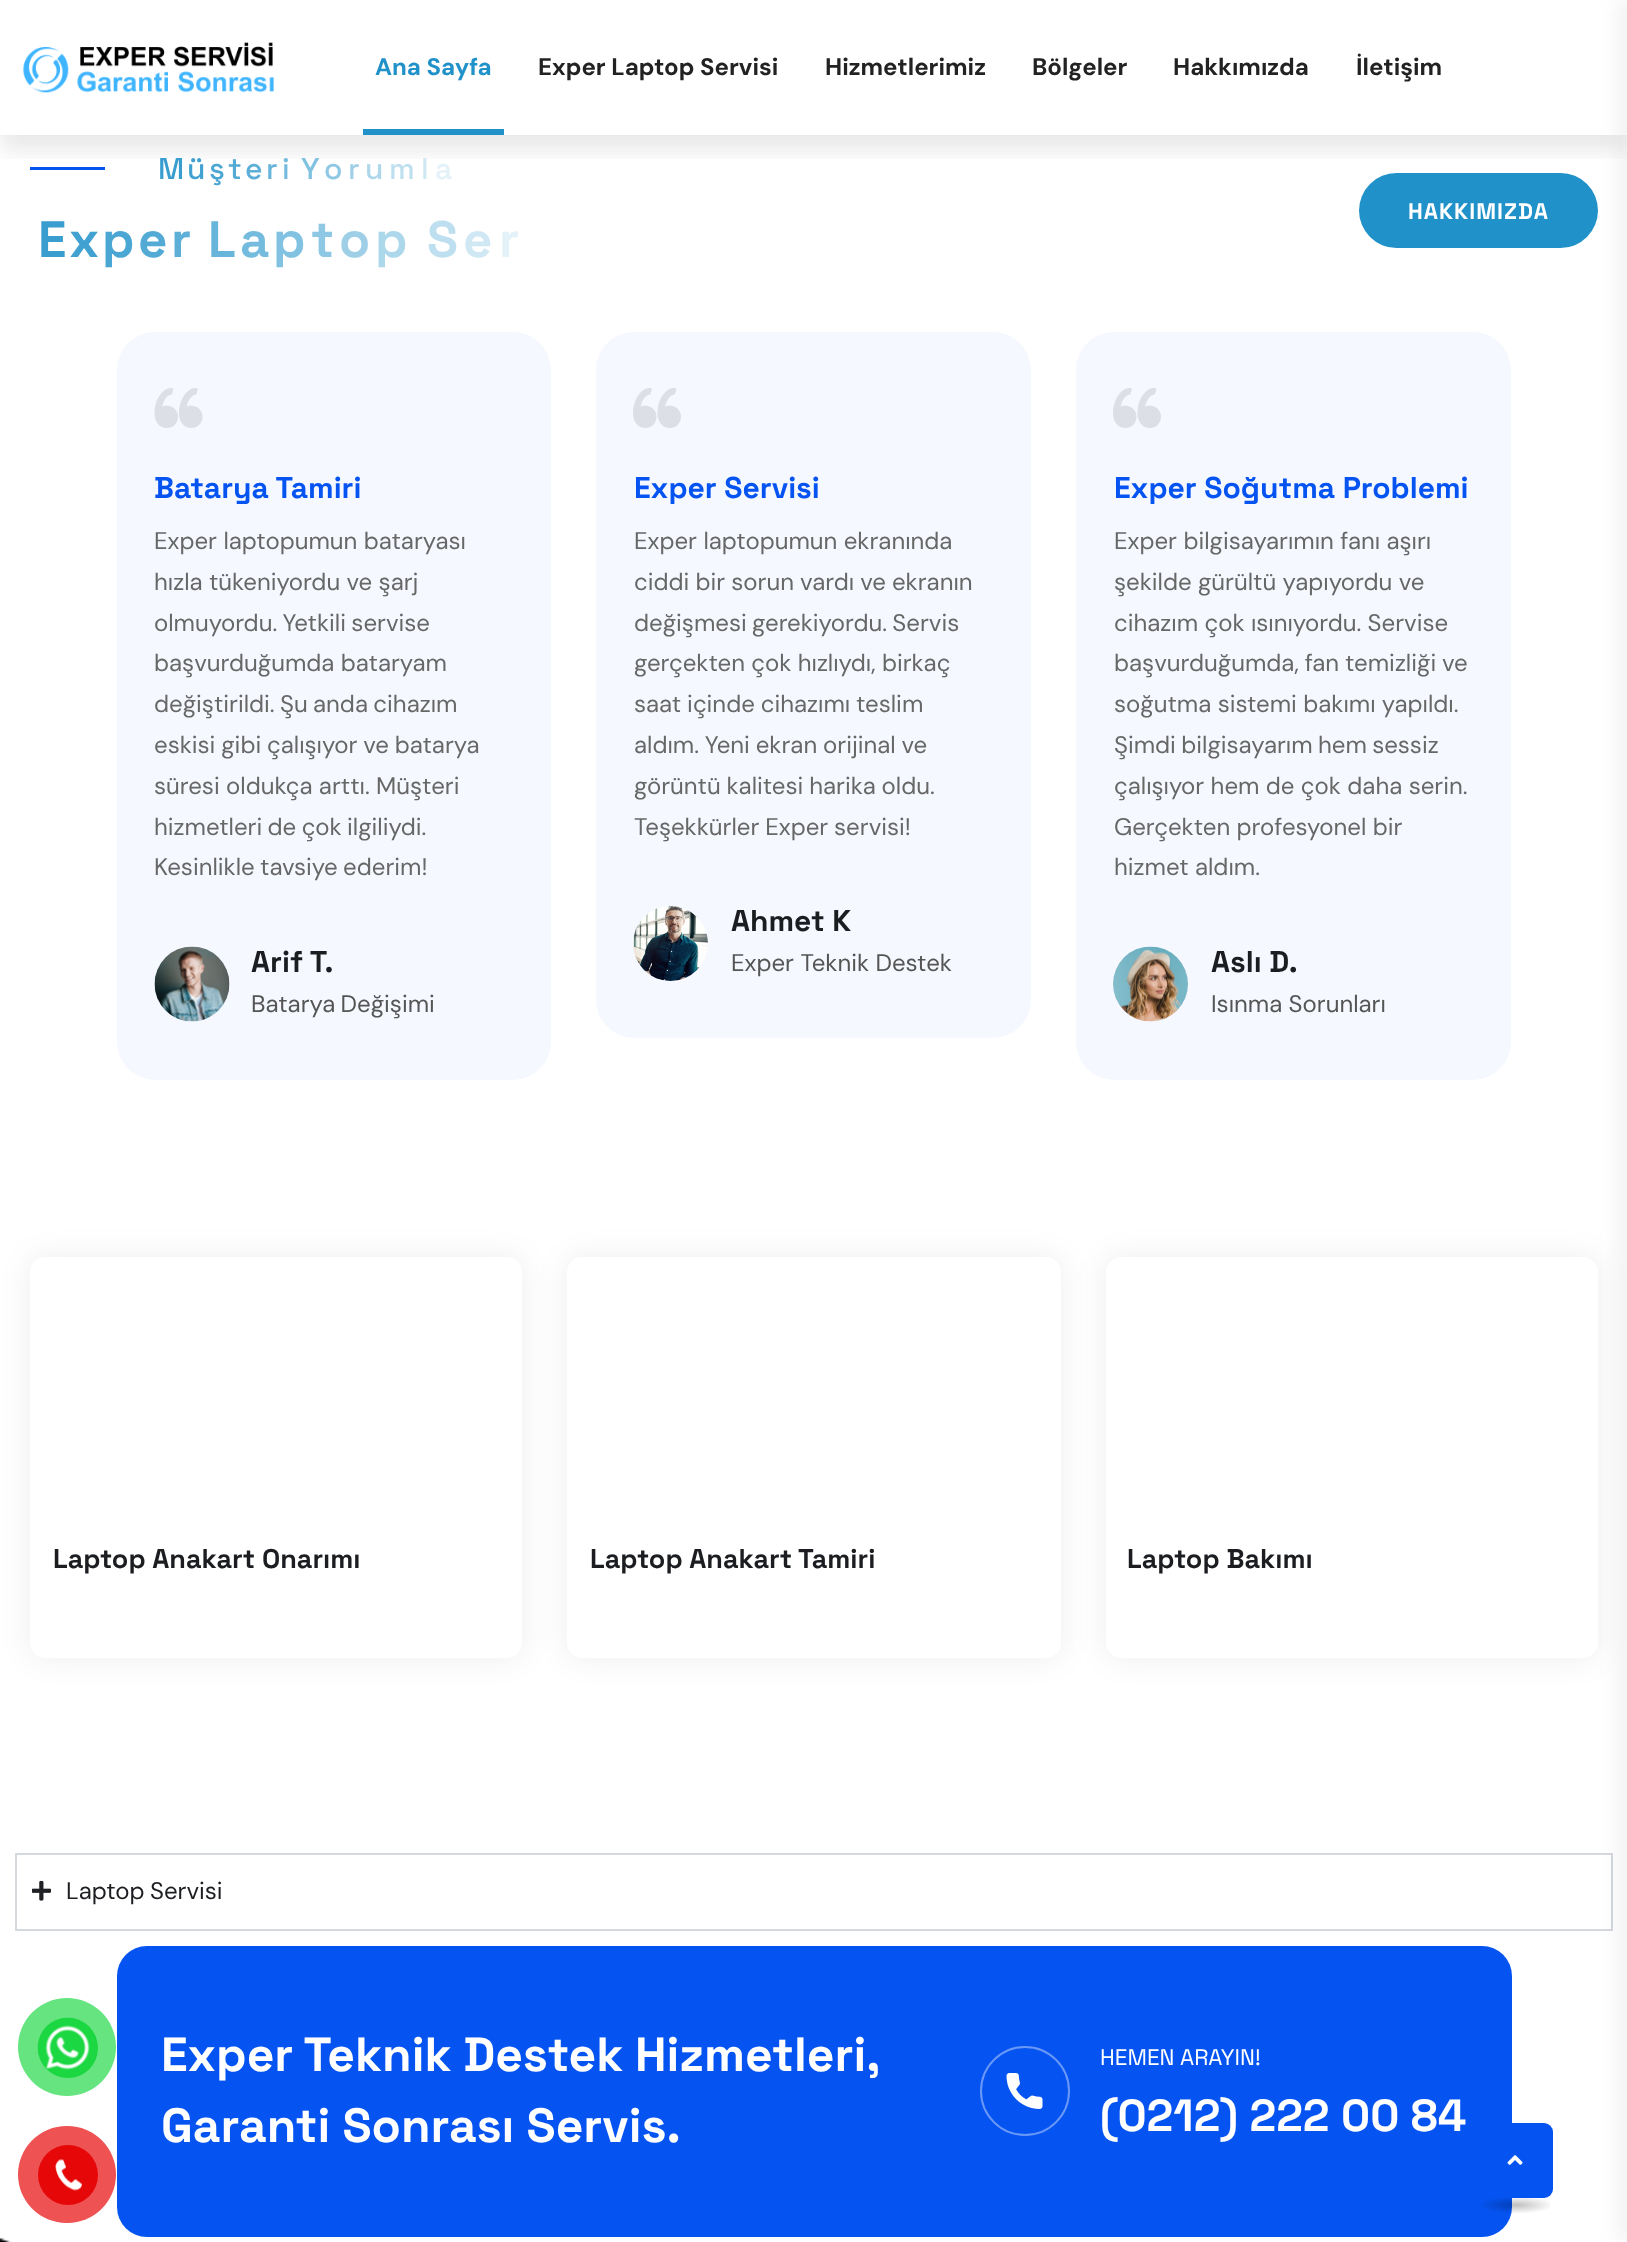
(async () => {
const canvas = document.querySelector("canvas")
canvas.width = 1627
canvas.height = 2242
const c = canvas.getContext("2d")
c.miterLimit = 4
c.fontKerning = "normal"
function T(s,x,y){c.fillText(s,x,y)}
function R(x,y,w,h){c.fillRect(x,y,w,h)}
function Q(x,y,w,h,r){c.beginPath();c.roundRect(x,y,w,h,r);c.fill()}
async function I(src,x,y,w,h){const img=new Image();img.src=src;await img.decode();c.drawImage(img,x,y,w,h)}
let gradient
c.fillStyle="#fff"
R(0,0,1627,2242)
c.fillStyle="#0554f2"
R(30,167,75,3)
c.fillStyle="#2091c9"
Q(1359,173,239,75,37.5)
c.save()
c.beginPath()
c.rect(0,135,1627,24)
c.clip()
c.fillStyle="#1919191a"
c.filter="blur(11px)"
c.beginPath()
c.rect(0,15,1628,135)
c.fill()
c.filter="none"
c.restore()
await I("1.png",23,42,251,51)
c.font="bold 24px DM Sans"
T("Ana Sayfa",375,75)
R(363,129,141,6)
c.fillStyle="#222"
T("Exper Laptop Servisi",538,75)
T("Hizmetlerimiz",825,75)
T("Bölgeler",1032,75)
T("Hakkımızda",1173,75)
T("İletişim",1356,75)
c.fillStyle="#00000012"
c.filter="blur(15px)"
c.beginPath()
c.roundRect(30,1257,492,401,15)
c.fill()
c.filter="none"
c.fillStyle="#fff"
Q(30,1257,492,401,15)
c.fillStyle="#00000012"
c.filter="blur(15px)"
c.beginPath()
c.roundRect(567,1257,494,401,15)
c.fill()
c.filter="none"
c.fillStyle="#fff"
Q(567,1257,494,401,15)
c.fillStyle="#00000012"
c.filter="blur(15px)"
c.beginPath()
c.roundRect(1106,1257,492,401,15)
c.fill()
c.filter="none"
c.fillStyle="#fff"
Q(1106,1257,492,401,15)
c.strokeStyle="#d5d8dc"
c.lineWidth=2
c.strokeRect(16,1854,1596,76)
c.fillStyle="#0000000f"
c.filter="blur(10.5px)"
c.beginPath()
c.rect(1619,0,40,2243)
c.fill()
c.filter="none"
c.font="500 30px Space Grotesk"
c.fillStyle="#399dcf"
T("M",158,179)
c.fillStyle="#41a1d1"
T("ü",187,179)
c.fillStyle="#4aa6d3"
T("ş",209,179)
c.fillStyle="#53aad5"
T("t",228,179)
c.fillStyle="#5dafd8"
T("e",245,179)
c.fillStyle="#68b5db"
T("r",266,179)
c.fillStyle="#74bbdd"
T("i",282,179)
c.fillStyle="#81c1e1"
T("Y",301,179)
c.fillStyle="#8fc8e4"
T("o",324,179)
c.fillStyle="#9ecfe7"
T("r",348,179)
c.fillStyle="#add7eb"
T("u",365,179)
c.fillStyle="#bedfef"
T("m",389,179)
c.fillStyle="#d0e8f4"
T("l",421,179)
c.fillStyle="#e3f1f8"
T("a",435,179)
c.font="bold 51px Space Grotesk"
c.fillStyle="#399dcf"
T("E",38,257)
c.fillStyle="#41a1d1"
T("x",69,257)
c.fillStyle="#4aa6d3"
T("p",102,257)
c.fillStyle="#53aad5"
T("e",138,257)
c.fillStyle="#5dafd8"
T("r",171,257)
c.fillStyle="#68b5db"
T("L",208,257)
c.fillStyle="#74bbdd"
T("a",240,257)
c.fillStyle="#81c1e1"
T("p",273,257)
c.fillStyle="#8fc8e4"
T("t",311,257)
c.fillStyle="#9ecfe7"
T("o",339,257)
c.fillStyle="#add7eb"
T("p",375,257)
c.fillStyle="#bedfef"
T("S",427,257)
c.fillStyle="#d0e8f4"
T("e",463,257)
c.fillStyle="#e3f1f8"
T("r",499,257)
c.letterSpacing="1px"
c.font="bold 22.5px Space Grotesk"
c.fillStyle="#fff"
T("HAKKIMIZDA",1408,219)
c.fillStyle="#f5f8ff"
Q(117,332,434,748,38)
await I("2.png",154,388,49,40)
c.letterSpacing="0px"
c.font="bold 30px Space Grotesk"
c.fillStyle="#0554f2"
T("Batarya Tamiri",154,498)
c.font="24px DM Sans"
c.fillStyle="#676767"
T("Exper laptopumun bataryası",154,549)
T("hızla tükeniyordu ve şarj",154,590)
c.wordSpacing="-1px"
T("olmuyordu. Yetkili servise",154,631)
c.wordSpacing="0px"
T("başvurduğumda bataryam",154,671)
c.wordSpacing="-1px"
T("değiştirildi. Şu anda cihazım",154,712)
c.wordSpacing="-0.5px"
T("eskisi gibi çalışıyor ve batarya",154,753)
c.wordSpacing="0px"
T("süresi oldukça arttı. Müşteri",154,794)
c.wordSpacing="-1px"
T("hizmetleri de çok ilgiliydi.",154,835)
T("Kesinlikle tavsiye ederim!",154,875)
await I("3.png",154,946,76,76)
c.wordSpacing="0px"
c.font="bold 30px Space Grotesk"
c.fillStyle="#1b1d21"
T("Arif T.",251,972)
c.wordSpacing="-1px"
c.font="24px DM Sans"
c.fillStyle="#555"
T("Batarya Değişimi",251,1012)
c.fillStyle="#f5f8ff"
Q(596,332,435,706,38)
await I("4.png",633,388,48,40)
c.wordSpacing="0px"
c.font="bold 30px Space Grotesk"
c.fillStyle="#0554f2"
T("Exper Servisi",634,498)
c.font="24px DM Sans"
c.fillStyle="#676767"
T("Exper laptopumun ekranında",634,549)
c.wordSpacing="-0.25px"
T("ciddi bir sorun vardı ve ekranın",634,590)
c.wordSpacing="-1px"
T("değişmesi gerekiyordu. Servis",634,631)
c.wordSpacing="0px"
T("gerçekten çok hızlıydı, birkaç",634,671)
c.wordSpacing="-0.5px"
T("saat içinde cihazımı teslim",634,712)
T("aldım. Yeni ekran orijinal ve",634,753)
T("görüntü kalitesi harika oldu.",634,794)
T("Teşekkürler Exper servisi!",634,835)
await I("5.png",633,906,75,75)
c.wordSpacing="0px"
c.font="bold 30px Space Grotesk"
c.fillStyle="#1b1d21"
T("Ahmet K",731,931)
c.font="24px DM Sans"
c.fillStyle="#555"
T("Exper Teknik Destek",731,971)
c.fillStyle="#f5f8ff"
Q(1076,332,435,748,38)
await I("4.png",1113,388,48,40)
c.font="bold 30px Space Grotesk"
c.fillStyle="#0554f2"
T("Exper Soğutma Problemi",1114,498)
c.font="24px DM Sans"
c.fillStyle="#676767"
T("Exper bilgisayarımın fanı aşırı",1114,549)
T("şekilde gürültü yapıyordu ve",1114,590)
T("cihazım çok ısınıyordu. Servise",1114,631)
c.wordSpacing="-0.5px"
T("başvurduğumda, fan temizliği ve",1114,671)
c.wordSpacing="0px"
T("soğutma sistemi bakımı yapıldı.",1114,712)
c.wordSpacing="-1px"
T("Şimdi bilgisayarım hem sessiz",1114,753)
c.wordSpacing="0px"
T("çalışıyor hem de çok daha serin.",1114,794)
T("Gerçekten profesyonel bir",1114,835)
T("hizmet aldım.",1114,875)
await I("6.png",1113,946,75,76)
c.font="bold 30px Space Grotesk"
c.fillStyle="#1b1d21"
T("Aslı D.",1211,972)
c.font="24px DM Sans"
c.fillStyle="#555"
T("Isınma Sorunları",1211,1012)
c.font="bold 27px Space Grotesk"
c.fillStyle="#1b1d21"
T("Laptop Anakart Onarımı",53,1568)
T("Laptop Anakart Tamiri",590,1568)
T("Laptop Bakımı",1127,1568)
await I("7.png",32,1880,19,21)
c.wordSpacing="-1px"
c.font="24px DM Sans"
T("Laptop Servisi",66,1899)
c.fillStyle="#65e47f"
c.beginPath()
c.arc(67,2047,49,0,7)
c.fill()
c.fillStyle="#1cd741"
c.beginPath()
c.arc(68,2048,30,0,7)
c.fill()
await I("8.png",37,2017,59,59)
c.fillStyle="#ee5252"
Q(18,2126,98,97,48.5)
c.fillStyle="#e60808"
c.beginPath()
c.arc(68,2175,30,0,7)
c.fill()
await I("9.png",55,2159,27,32)
c.fillStyle="#0554f2"
Q(117,1946,1395,291,30)
c.wordSpacing="-0.5px"
c.font="bold 48px Space Grotesk"
c.fillStyle="#fff"
T("Exper Teknik Destek Hizmetleri,",161,2071)
c.wordSpacing="0px"
T("Garanti Sonrası Servis.",161,2142)
c.beginPath()
c.arc(1025,2091,44,0,7)
c.strokeStyle="#6998f7"
c.stroke()
await I("10.png",1006,2073,37,36)
c.font="22.5px Space Grotesk"
T("HEMEN ARAYIN!",1100,2065)
c.font="bold 45px Space Grotesk"
T("(0212) 222 00 84",1100,2131)
c.fillStyle="#0554f2"
Q(1478,2123,75,75,9)
await I("11.png",1507,2155,16,10)
gradient = c.createRadialGradient(1516,9621.82,0,1516,9621.82,48)
gradient.addColorStop(0,"#00000040")
gradient.addColorStop(.8,"#00000000")
c.fillStyle = gradient
c.beginPath()
c.rect(1482,2198,68,15)
c.save()
c.clip()
c.scale(1,11 / 48)
c.fillRect(0,0,1627,9784)
c.restore()
await I("12.png",0,2238,11,4)
})()
